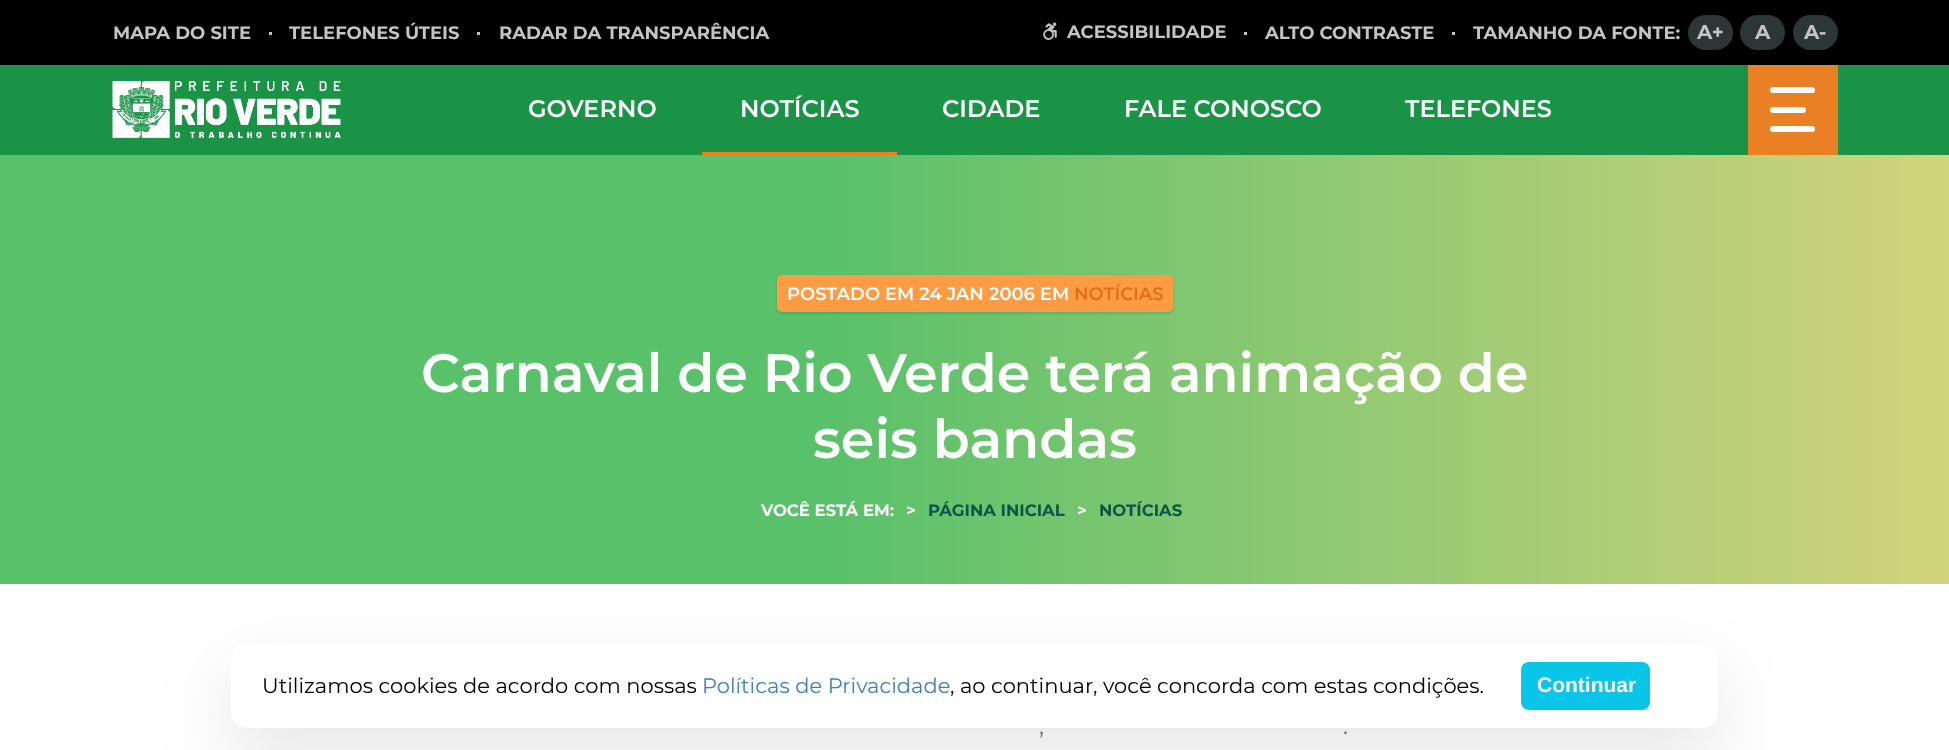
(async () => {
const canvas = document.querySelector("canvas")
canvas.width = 1949
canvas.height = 750
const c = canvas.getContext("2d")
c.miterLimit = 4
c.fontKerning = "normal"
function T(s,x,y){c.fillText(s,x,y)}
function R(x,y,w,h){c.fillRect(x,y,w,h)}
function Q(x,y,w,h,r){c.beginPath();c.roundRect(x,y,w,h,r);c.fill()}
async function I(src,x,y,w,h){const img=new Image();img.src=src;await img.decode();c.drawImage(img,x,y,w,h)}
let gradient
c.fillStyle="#fff"
R(0,0,1949,750)
c.fillStyle="#000"
R(0,0,1949,65)
c.font="bold 18px Montserrat"
c.fillStyle="#c4c4c4"
T("MAPA DO SITE",113,39)
R(269,32,3,3)
T("TELEFONES ÚTEIS",289,39)
R(477,32,3,3)
T("RADAR DA TRANSPARÊNCIA",499,39)
await I("1.png",1043,22,14,18)
T("ACESSIBILIDADE",1067,38)
R(1244,32,3,3)
T("ALTO CONTRASTE",1265,39)
R(1452,32,3,3)
T("TAMANHO DA FONTE:",1473,39)
c.fillStyle="#2d3635"
Q(1688,15,45,35,17.5)
c.font="bold 20px Montserrat"
c.fillStyle="#c4c4c4"
T("A+",1697,39)
c.fillStyle="#2d3635"
Q(1740,15,45,35,17.5)
c.fillStyle="#c4c4c4"
T("A",1755,39)
c.fillStyle="#2d3635"
Q(1793,15,45,35,17.5)
c.fillStyle="#c4c4c4"
T("A-",1804,39)
c.fillStyle="#1b9347"
R(0,65,1949,90)
await I("2.png",112,81,229,57)
c.font="600 24px Montserrat"
c.fillStyle="#fff"
T("GOVERNO",528,117)
T("NOTÍCIAS",740,117)
c.fillStyle="#ea8024"
R(702,152,195,3)
c.fillStyle="#fff"
T("CIDADE",942,117)
T("FALE CONOSCO",1124,117)
T("TELEFONES",1405,117)
c.fillStyle="#ea8024"
R(1748,65,90,90)
c.fillStyle="#fff"
Q(1770,87,45,6,3)
Q(1770,107,36,6,3)
Q(1770,126,45,6,3)
gradient = c.createLinearGradient(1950,369,0,369)
gradient.addColorStop(0,"#d2d37c")
gradient.addColorStop(.58,"#58c16a")
c.fillStyle = gradient
R(0,155,1949,429)
c.fillStyle="#0000001a"
c.filter="blur(1px)"
c.beginPath()
c.roundRect(777,276,396,38,5)
c.fill()
c.filter="none"
c.fillStyle="#ff9b43"
Q(777,275,396,37,5)
c.font="600 18px Montserrat"
c.fillStyle="#fff"
T("POSTADO EM 24 JAN 2006 EM",787,300)
c.fillStyle="#dc7119"
T("NOTÍCIAS",1074,300)
c.font="600 54px Montserrat"
c.fillStyle="#fff"
T("Carnaval de Rio Verde terá animação de",421,392)
T("seis bandas",813,458)
c.font="bold 16.5px Montserrat"
T("VOCÊ ESTÁ EM:",761,516)
T(">",906,516)
c.fillStyle="#0b5549"
T("PÁGINA INICIAL",928,516)
c.fillStyle="#fff"
T(">",1077,516)
c.fillStyle="#0b5549"
T("NOTÍCIAS",1099,516)
c.font="24px Montserrat"
c.fillStyle="#737970"
T(",",1039,734)
T(".",1343,734)
c.fillStyle="#0000001a"
c.filter="blur(37.5px)"
c.beginPath()
c.roundRect(231,674,1487,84,15)
c.fill()
c.filter="none"
c.fillStyle="#fff"
Q(231,644,1487,84,15)
c.font="21px Montserrat"
c.fillStyle="#000"
T("Utilizamos cookies de acordo com nossas",262,693)
c.fillStyle="#3c80bc"
T("Políticas de Privacidade",702,693)
c.fillStyle="#000"
T(", ao continuar, você concorda com estas condições.",950,693)
c.fillStyle="#09c5e7"
Q(1521,662,129,48,8)
c.font="bold 21px Liberation Sans"
c.fillStyle="#fff"
T("Continuar",1537,692)
})()
